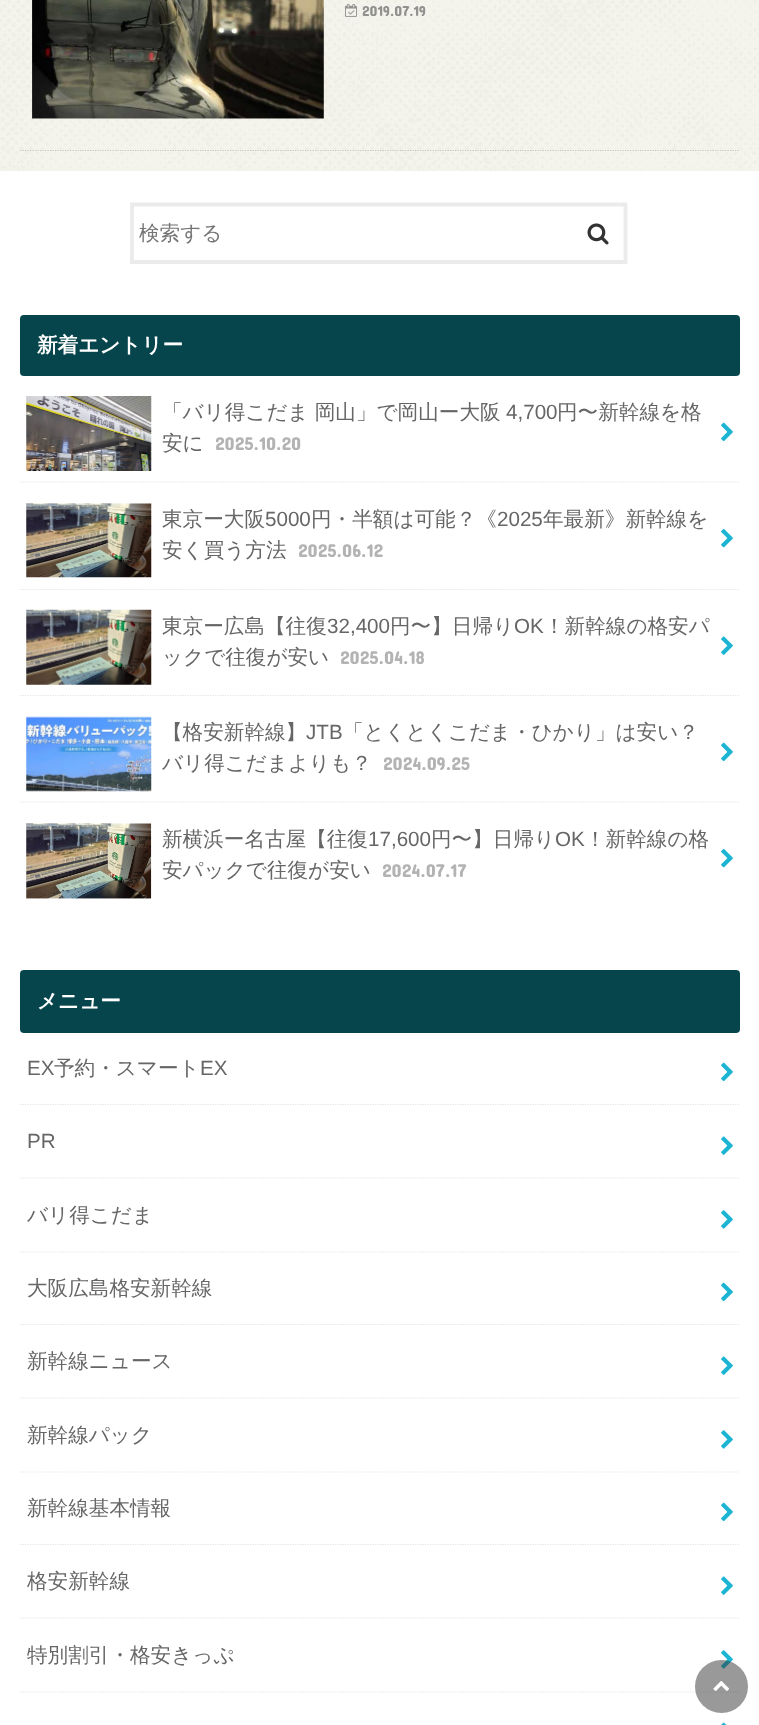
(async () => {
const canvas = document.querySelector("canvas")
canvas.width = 759
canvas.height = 1725
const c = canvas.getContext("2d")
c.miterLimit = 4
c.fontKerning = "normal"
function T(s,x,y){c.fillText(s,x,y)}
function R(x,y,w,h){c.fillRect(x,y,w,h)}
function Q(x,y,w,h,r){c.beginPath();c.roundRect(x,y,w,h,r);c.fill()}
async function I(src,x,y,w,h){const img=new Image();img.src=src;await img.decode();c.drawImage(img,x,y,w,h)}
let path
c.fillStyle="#fff"
R(0,0,759,1725)
await I("1.png",0,0,759,171)
path = new Path2D("M20 150.5h720")
c.strokeStyle="#00000033"
c.lineWidth=1.2
c.setLineDash([1.25,1.25])
c.stroke(path)
await I("2.png",32,0,292,119)
await I("3.png",345,4,12,13)
c.font="14.5px Concert One"
c.fillStyle="#90908e"
T("2019.07.19",362,16)
path = new Path2D("M132 204.5h493.5v57.5h-493.5z")
c.strokeStyle="#ebebeb"
c.lineWidth=3.8
c.setLineDash([])
c.stroke(path)
c.font="500 20.6px WenQuanYi Zen Hei"
c.fillStyle="#757575"
T("検索する",139,240)
await I("4.png",587,223,22,22)
c.fillStyle="#06454c"
Q(20,315,720,61,4)
c.font="bold 20.6px WenQuanYi Zen Hei"
c.fillStyle="#fff"
T("新着エントリー",37,352)
path = new Path2D("M20 482h720")
c.strokeStyle="#e5e5e5"
c.lineWidth=1.2
c.setLineDash([1.25,1.25])
c.stroke(path)
await I("5.png",26,396,126,75)
c.font="500 20.6px WenQuanYi Zen Hei"
c.fillStyle="#666"
T("「バリ得こだま 岡山」で岡山ー大阪",162,419)
c.font="20.6px Liberation Sans"
T("4,700",506,419)
c.font="500 20.6px WenQuanYi Zen Hei"
T("円〜新幹線を格",557,419)
T("安に",162,450)
c.font="18.5px Concert One"
c.fillStyle="#b3b3b3"
T("2025.10.20",215,450)
await I("6.png",721,422,12,20)
path = new Path2D("M20 589.5h720")
c.stroke(path)
await I("7.png",26,503,126,75)
c.font="500 20.6px WenQuanYi Zen Hei"
c.fillStyle="#666"
T("東京ー大阪",162,526)
c.font="20.6px Liberation Sans"
T("5000",265,526)
c.font="500 20.6px WenQuanYi Zen Hei"
T("円・半額は可能？《",311,526)
c.font="20.6px Liberation Sans"
T("2025",497,526)
c.font="500 20.6px WenQuanYi Zen Hei"
T("年最新》新幹線を",543,526)
T("安く買う方法",162,557)
c.font="18.5px Concert One"
c.fillStyle="#b3b3b3"
T("2025.06.12",298,557)
await I("8.png",721,528,12,20)
path = new Path2D("M20 695.5h720")
c.stroke(path)
await I("9.png",26,609,126,76)
c.font="500 20.6px WenQuanYi Zen Hei"
c.fillStyle="#666"
T("東京ー広島【往復",162,633)
c.font="20.6px Liberation Sans"
T("32,400",327,633)
c.font="500 20.6px WenQuanYi Zen Hei"
T("円〜】日帰り",390,633)
c.font="20.6px Liberation Sans"
T("OK",514,633)
c.font="500 20.6px WenQuanYi Zen Hei"
T("！新幹線の格安パ",544,633)
T("ックで往復が安い",162,664)
c.font="18.5px Concert One"
c.fillStyle="#b3b3b3"
T("2025.04.18",340,664)
await I("10.png",721,636,12,19)
path = new Path2D("M20 802h720")
c.stroke(path)
await I("11.png",26,716,126,76)
c.font="500 20.6px WenQuanYi Zen Hei"
c.fillStyle="#666"
T("【格安新幹線】",162,739)
c.font="20.6px Liberation Sans"
T("JTB",306,739)
c.font="500 20.6px WenQuanYi Zen Hei"
T("「とくとくこだま・ひかり」は安い？",343,739)
T("バリ得こだまよりも？",162,770)
c.font="18.5px Concert One"
c.fillStyle="#b3b3b3"
T("2024.09.25",383,770)
await I("6.png",721,742,12,20)
await I("12.png",26,823,126,76)
c.font="500 20.6px WenQuanYi Zen Hei"
c.fillStyle="#666"
T("新横浜ー名古屋【往復",162,846)
c.font="20.6px Liberation Sans"
T("17,600",368,846)
c.font="500 20.6px WenQuanYi Zen Hei"
T("円〜】日帰り",431,846)
c.font="20.6px Liberation Sans"
T("OK",555,846)
c.font="500 20.6px WenQuanYi Zen Hei"
T("！新幹線の格",585,846)
T("安パックで往復が安い",162,877)
c.font="18.5px Concert One"
c.fillStyle="#b3b3b3"
T("2024.07.17",382,877)
await I("8.png",721,848,12,20)
c.fillStyle="#06454c"
Q(20,970,720,63,4)
c.font="bold 20.6px WenQuanYi Zen Hei"
c.fillStyle="#fff"
T("メニュー",37,1008)
path = new Path2D("M20 1104.5h720")
c.stroke(path)
c.font="20.6px Liberation Sans"
c.fillStyle="#666"
T("EX",27,1075)
c.font="500 20.6px WenQuanYi Zen Hei"
T("予約・スマート",54,1075)
c.font="20.6px Liberation Sans"
T("EX",200,1075)
await I("6.png",721,1062,12,20)
path = new Path2D("M20 1178h720")
c.stroke(path)
T("PR",27,1148)
await I("10.png",721,1136,12,19)
path = new Path2D("M20 1252h720")
c.stroke(path)
c.font="500 20.6px WenQuanYi Zen Hei"
T("バリ得こだま",27,1222)
await I("13.png",721,1210,12,19)
path = new Path2D("M20 1324.5h720")
c.stroke(path)
T("大阪広島格安新幹線",27,1295)
await I("6.png",721,1282,12,20)
path = new Path2D("M20 1398h720")
c.stroke(path)
T("新幹線ニュース",27,1368)
await I("10.png",721,1356,12,19)
path = new Path2D("M20 1472h720")
c.stroke(path)
T("新幹線パック",27,1442)
await I("13.png",721,1430,12,19)
path = new Path2D("M20 1544.5h720")
c.stroke(path)
T("新幹線基本情報",27,1515)
await I("6.png",721,1502,12,20)
path = new Path2D("M20 1618h720")
c.stroke(path)
T("格安新幹線",27,1588)
await I("10.png",721,1576,12,19)
path = new Path2D("M20 1692h720")
c.stroke(path)
T("特別割引・格安きっぷ",27,1662)
await I("13.png",721,1650,12,19)
await I("14.png",721,1722,6,3)
c.fillStyle="#33333380"
c.beginPath()
c.arc(721.5,1686.5,26.5,0,7)
c.fill()
await I("15.png",713,1681,16,10)
})()
